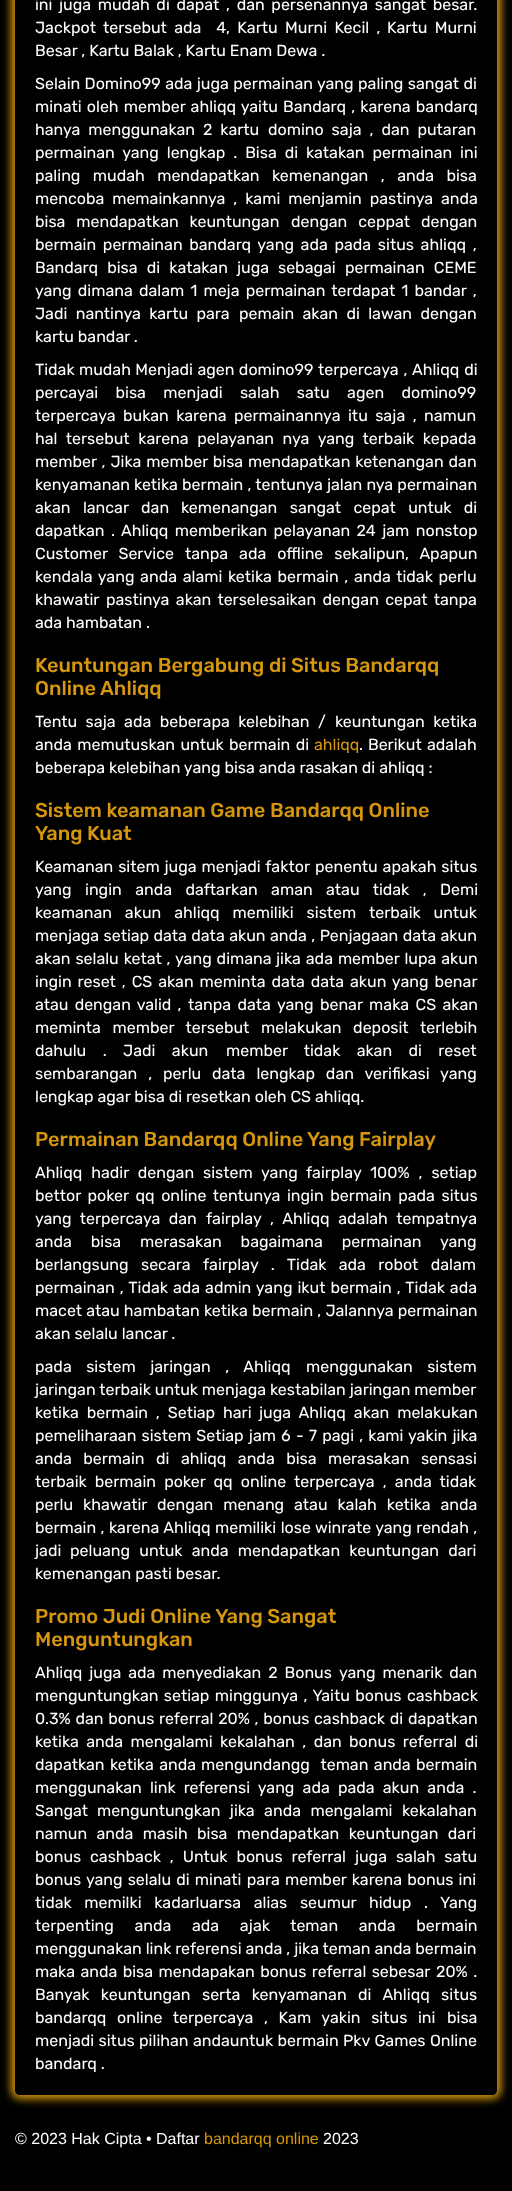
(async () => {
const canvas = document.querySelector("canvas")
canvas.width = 512
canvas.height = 2191
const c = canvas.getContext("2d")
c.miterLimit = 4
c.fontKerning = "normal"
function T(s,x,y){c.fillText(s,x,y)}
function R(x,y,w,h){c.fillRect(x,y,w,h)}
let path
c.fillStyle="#000"
R(0,0,512,2191)
c.save()
path = new Path2D("M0 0h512v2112h-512zm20-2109h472c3 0 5 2 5 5v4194c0 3-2 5-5 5h-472c-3 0-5-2-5-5v-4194c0-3 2-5 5-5z")
c.clip(path,"evenodd")
c.fillStyle="#d6970e"
c.filter="blur(4px)"
c.beginPath()
c.roundRect(11,-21,490,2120,9)
c.fill()
c.filter="none"
c.restore()
c.font="16px Rubik"
c.fillStyle="#fff"
T("ini",35,10)
c.wordSpacing="2.75px"
T("juga mudah di dapat , dan persenannya sangat besar.",59,10)
c.wordSpacing="3.5px"
T("Jackpot tersebut ada  4, Kartu Murni Kecil ,",35,33)
T("Kartu Murni",387,33)
c.wordSpacing="0px"
T("Besar , Kartu Balak , Kartu Enam Dewa .",35,56)
c.wordSpacing="0.5px"
T("Selain Domino99 ada juga permainan",35,89)
T("yang paling sangat di",317,89)
c.wordSpacing="1.25px"
T("minati oleh member ahliqq yaitu Bandarq , karena bandarq",35,112)
c.wordSpacing="4px"
T("hanya menggunakan 2 kartu",35,135)
T("domino saja , dan putaran",268,135)
T("permainan yang lengkap . Bisa di katakan permainan ini",35,158)
c.wordSpacing="8.5px"
T("paling mudah mendapatkan",35,181)
T("kemenangan , anda bisa",272,181)
c.wordSpacing="4px"
T("mencoba memainkannya , kami menjamin pastinya anda",35,204)
c.wordSpacing="7px"
T("bisa mendapatkan keuntungan",35,227)
T("dengan ceppat dengan",291,227)
c.wordSpacing="2.75px"
T("bermain permainan bandarq yang ada pada situs ahliqq ,",35,250)
c.wordSpacing="5.25px"
T("Bandarq bisa di katakan juga",35,273)
T("sebagai permainan CEME",278,273)
c.wordSpacing="2.25px"
T("yang dimana dalam 1 meja permainan terdapat 1 bandar ,",35,296)
c.wordSpacing="4.5px"
T("Jadi nantinya kartu para",35,319)
T("pemain akan di lawan dengan",239,319)
c.wordSpacing="0px"
T("kartu bandar .",35,342)
c.wordSpacing="0.5px"
T("Tidak mudah Menjadi agen domino99",35,375)
c.wordSpacing="1px"
T("terpercaya , Ahliqq di",318,375)
c.wordSpacing="13.5px"
T("percayai bisa menjadi salah satu agen domino99",35,398)
c.wordSpacing="3.5px"
T("terpercaya bukan karena permainannya",35,421)
T("itu saja , namun",348,421)
c.wordSpacing="4.75px"
T("hal tersebut karena pelayanan nya yang terbaik kepada",35,444)
c.wordSpacing="1px"
T("member , Jika member bisa",35,467)
T("mendapatkan ketenangan dan",248,467)
c.wordSpacing="0.25px"
T("kenyamanan ketika bermain , tentunya jalan nya permainan",35,490)
c.wordSpacing="8.5px"
T("akan lancar dan",35,513)
T("kemenangan sangat cepat untuk di",181,513)
c.wordSpacing="2.5px"
T("dapatkan . Ahliqq memberikan pelayanan 24 jam nonstop",35,536)
c.wordSpacing="6.75px"
T("Customer Service",35,559)
c.wordSpacing="7px"
T("tanpa ada offline sekalipun, Apapun",185,559)
c.wordSpacing="1.75px"
T("kendala yang anda alami ketika bermain , anda tidak perlu",35,582)
c.wordSpacing="0px"
T("khawatir",35,605)
c.wordSpacing="2.5px"
T("pastinya akan terselesaikan dengan cepat tanpa",106,605)
c.wordSpacing="0px"
T("ada hambatan .",35,628)
c.font="500 20px Rubik"
c.fillStyle="#d6970e"
T("Keuntungan Bergabung di Situs Bandarqq",35,672)
T("Online",35,695)
T("Ahliqq",100,695)
c.wordSpacing="4.5px"
c.font="16px Rubik"
c.fillStyle="#fff"
T("Tentu saja ada beberapa kelebihan /",35,727)
T("keuntungan ketika",335,727)
c.wordSpacing="1.5px"
T("anda memutuskan untuk bermain di",35,750)
c.wordSpacing="0px"
c.fillStyle="#d6970e"
T("ahliqq",314,750)
c.wordSpacing="1px"
c.fillStyle="#fff"
T(". Berikut",359,750)
c.wordSpacing="0px"
T("adalah",427,750)
T("beberapa kelebihan yang bisa anda rasakan di ahliqq :",35,773)
c.font="500 20px Rubik"
c.fillStyle="#d6970e"
T("Sistem keamanan Game Bandarqq Online",35,817)
T("Yang Kuat",35,840)
c.wordSpacing="1px"
c.font="16px Rubik"
c.fillStyle="#fff"
T("Keamanan sitem juga menjadi faktor",35,872)
T("penentu apakah situs",315,872)
c.wordSpacing="9.5px"
T("yang ingin anda daftarkan aman atau tidak , Demi",35,895)
c.wordSpacing="9px"
T("keamanan akun ahliqq memiliki sistem",35,918)
T("terbaik untuk",369,918)
c.wordSpacing="0.5px"
T("menjaga setiap data data akun anda , Penjagaan data akun",35,941)
c.wordSpacing="1px"
T("akan selalu ketat , yang dimana",35,964)
T("jika ada member lupa akun",276,964)
c.wordSpacing="2px"
T("ingin reset , CS akan meminta data data akun yang benar",35,987)
c.wordSpacing="2.25px"
T("atau dengan valid ,",35,1010)
c.wordSpacing="2.5px"
T("tanpa data yang benar maka CS akan",188,1010)
c.wordSpacing="7.75px"
T("meminta member tersebut melakukan deposit terlebih",35,1033)
c.wordSpacing="12.5px"
T("dahulu . Jadi akun",35,1056)
T("member tidak akan di reset",226,1056)
c.wordSpacing="7px"
T("sembarangan , perlu data lengkap dan verifikasi yang",35,1079)
c.wordSpacing="0px"
T("lengkap agar bisa di resetkan oleh CS ahliqq.",35,1102)
c.font="500 20px Rubik"
c.fillStyle="#d6970e"
T("Permainan Bandarqq Online",35,1146)
T("Yang Fairplay",307,1146)
c.wordSpacing="5px"
c.font="16px Rubik"
c.fillStyle="#fff"
T("Ahliqq hadir dengan sistem yang",35,1178)
T("fairplay 100% , setiap",306,1178)
c.wordSpacing="2.75px"
T("bettor poker qq online tentunya ingin bermain pada situs",35,1201)
c.wordSpacing="4.5px"
T("yang terpercaya dan",35,1224)
c.wordSpacing="4.75px"
T("fairplay , Ahliqq adalah tempatnya",206,1224)
c.wordSpacing="15px"
T("anda bisa merasakan bagaimana permainan yang",35,1247)
c.wordSpacing="8.5px"
T("berlangsung secara",35,1270)
T("fairplay . Tidak ada robot dalam",203,1270)
c.wordSpacing="1.1px"
T("permainan , Tidak ada admin yang ikut bermain , Tidak ada",35,1293)
c.wordSpacing="0.25px"
T("macet atau hambatan ketika bermain , Jalannya permainan",35,1316)
c.wordSpacing="0px"
T("akan selalu lancar .",35,1339)
c.wordSpacing="10.5px"
T("pada sistem jaringan , Ahliqq",35,1372)
T("menggunakan sistem",306,1372)
c.wordSpacing="0px"
T("jaringan terbaik untuk menjaga kestabilan jaringan member",35,1395)
c.wordSpacing="4px"
T("ketika bermain , Setiap hari",35,1418)
T("juga Ahliqq akan melakukan",259,1418)
c.wordSpacing="1.25px"
T("pemeliharaan sistem Setiap jam 6 - 7 pagi , kami yakin jika",35,1441)
c.wordSpacing="7.5px"
T("anda bermain di",35,1464)
T("ahliqq anda bisa merasakan sensasi",181,1464)
c.wordSpacing="4.25px"
T("terbaik bermain poker qq online terpercaya , anda tidak",35,1487)
c.wordSpacing="6px"
T("perlu khawatir",35,1510)
T("dengan menang atau kalah ketika anda",157,1510)
c.wordSpacing="0.5px"
T("bermain , karena Ahliqq memiliki lose winrate yang rendah ,",35,1533)
c.wordSpacing="0px"
T("jadi",35,1556)
c.wordSpacing="5.25px"
T("peluang untuk anda mendapatkan keuntungan dari",70,1556)
c.wordSpacing="0px"
T("kemenangan pasti besar.",35,1579)
c.font="500 20px Rubik"
c.fillStyle="#d6970e"
T("Promo Judi Online Yang Sangat",35,1623)
T("Menguntungkan",35,1646)
c.wordSpacing="3px"
c.font="16px Rubik"
c.fillStyle="#fff"
T("Ahliqq juga ada menyediakan 2 Bonus",35,1678)
T("yang menarik dan",339,1678)
c.wordSpacing="1.5px"
T("menguntungkan setiap minggunya , Yaitu bonus cashback",35,1701)
c.wordSpacing="0.75px"
T("0.3% dan bonus referral 20% , bonus",35,1724)
c.wordSpacing="1px"
T("cashback di dapatkan",314,1724)
c.wordSpacing="3.5px"
T("ketika anda mengalami kekalahan , dan bonus referral di",35,1747)
c.wordSpacing="1.5px"
T("dapatkan ketika anda",35,1770)
T("mengundangg  teman anda bermain",201,1770)
c.wordSpacing="4.25px"
T("menggunakan link referensi yang ada pada akun anda .",35,1793)
c.wordSpacing="0px"
T("Sangat",35,1816)
c.wordSpacing="5.5px"
T("menguntungkan jika anda mengalami kekalahan",97,1816)
T("namun anda masih bisa mendapatkan keuntungan dari",35,1839)
c.wordSpacing="0px"
T("bonus",35,1862)
c.wordSpacing="5px"
T("cashback , Untuk bonus referral juga salah satu",90,1862)
c.wordSpacing="1.25px"
T("bonus yang selalu di minati para member karena bonus ini",35,1885)
c.wordSpacing="8.75px"
T("tidak memilki kadarluarsa alias seumur hidup . Yang",35,1908)
c.wordSpacing="16.75px"
T("terpenting anda ada ajak teman anda bermain",35,1931)
c.wordSpacing="0px"
T("menggunakan link referensi anda , jika teman anda bermain",35,1954)
c.wordSpacing="1.5px"
T("maka anda bisa mendapakan bonus referral sebesar",35,1977)
T("20% .",436,1977)
c.wordSpacing="7.5px"
T("Banyak keuntungan serta kenyamanan di Ahliqq situs",35,2000)
c.wordSpacing="6.75px"
T("bandarqq online terpercaya , Kam yakin situs ini",35,2023)
c.wordSpacing="0px"
T("bisa",447,2023)
c.wordSpacing="0.5px"
T("menjadi situs pilihan andauntuk bermain Pkv Games Online",35,2046)
c.wordSpacing="0px"
T("bandarq .",35,2069)
c.font="16px Liberation Sans"
T("© 2023 Hak Cipta • Daftar",15,2144)
c.fillStyle="#d6970e"
T("bandarqq online",204,2144)
c.fillStyle="#fff"
T("2023",323,2144)
})()
